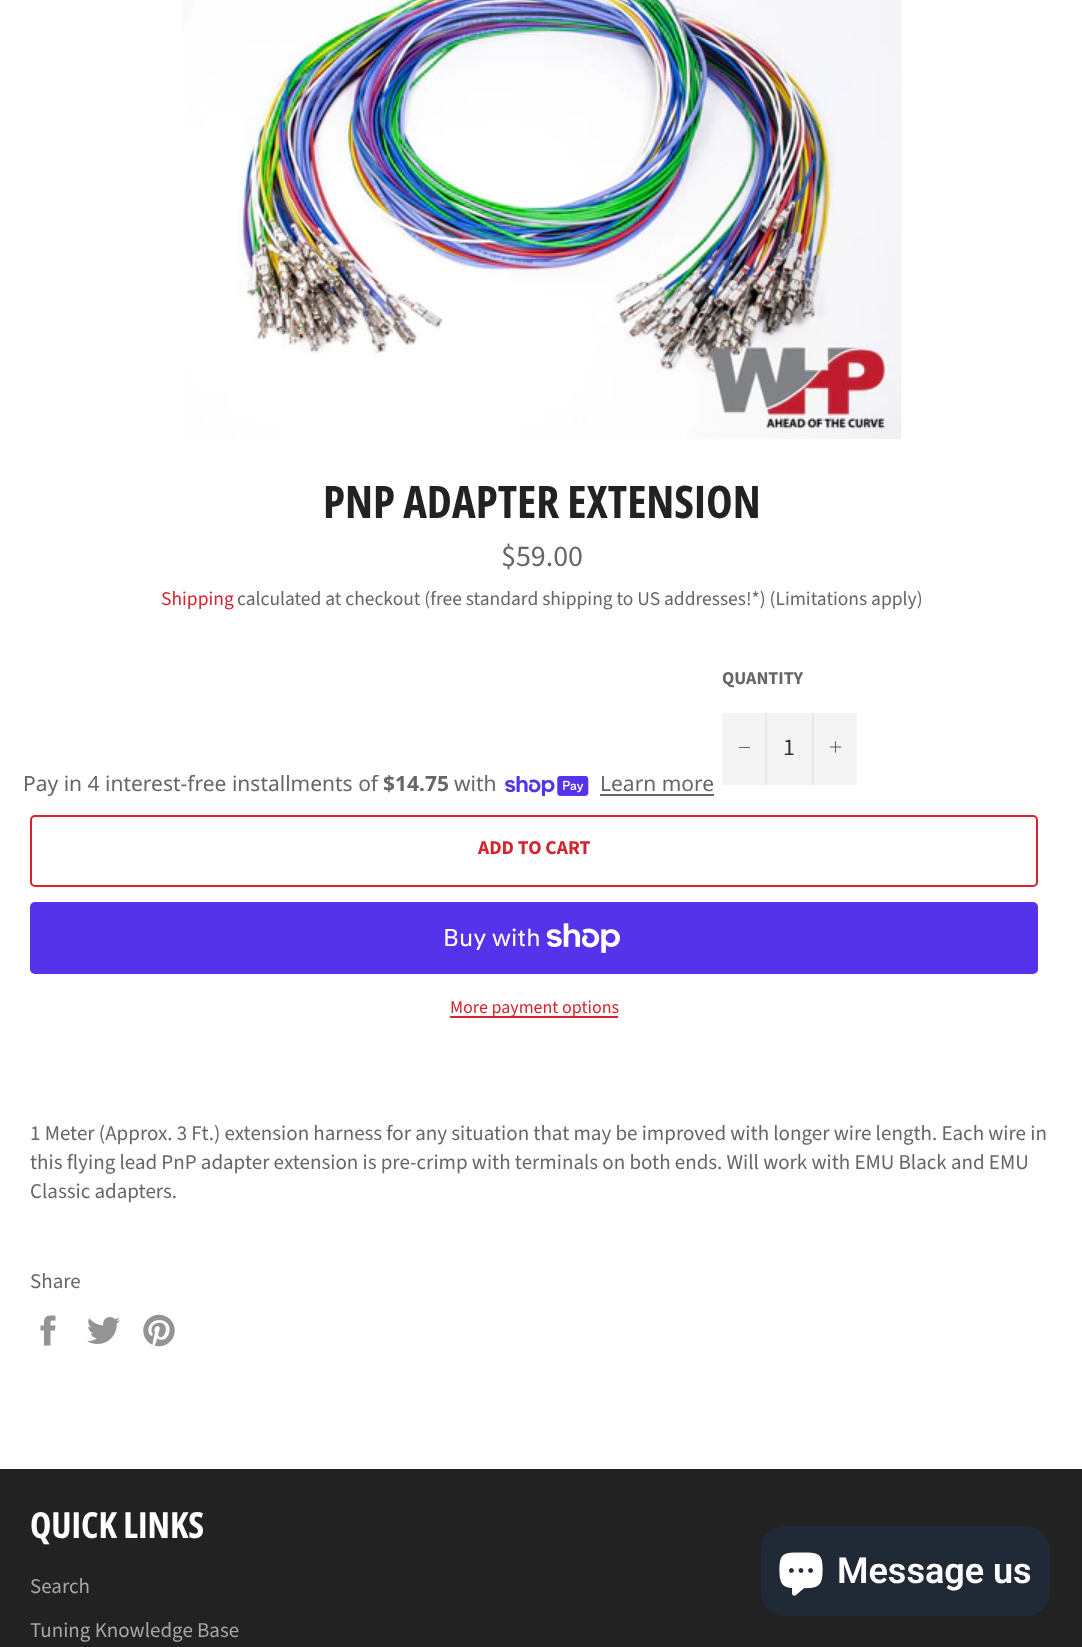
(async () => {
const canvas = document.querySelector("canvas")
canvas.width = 1082
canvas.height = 1647
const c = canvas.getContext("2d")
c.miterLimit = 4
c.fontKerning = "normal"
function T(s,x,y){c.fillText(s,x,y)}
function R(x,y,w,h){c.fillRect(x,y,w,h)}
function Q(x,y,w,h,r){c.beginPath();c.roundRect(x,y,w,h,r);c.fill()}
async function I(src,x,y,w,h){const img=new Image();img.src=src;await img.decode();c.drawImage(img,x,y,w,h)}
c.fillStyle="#fff"
R(0,0,1082,1647)
await I("1.png",182,0,720,439)
c.font="bold 45px Open Sans Condensed"
c.fillStyle="#222"
T("PNP ADAPTER EXTENSION",323,518)
c.font="30px Source Sans Pro"
c.fillStyle="#666"
T("$59.00",501,566)
c.font="19.5px Source Sans Pro"
c.fillStyle="#d8232f"
T("Shipping",161,605)
c.fillStyle="#666"
T("calculated at checkout (free standard shipping to US addresses!*) (Limitations apply)",237,605)
c.font="bold 18px Source Sans Pro"
T("QUANTITY",722,684)
c.fillStyle="#f4f4f4"
R(722,713,135,72)
c.fillStyle="#e7e7e7"
R(765,713,2,72)
c.fillStyle="#666"
R(739,747,11,1)
c.font="24px Source Sans Pro"
c.fillStyle="#333"
T("1",783,755)
c.fillStyle="#e7e7e7"
R(812,713,2,72)
await I("2.png",830,741,12,12)
c.font="21px Noto Sans"
c.fillStyle="#666"
T("Pay in 4 interest-free installments of",23,791)
c.font="bold 21px Noto Sans"
T("$14.75",383,791)
c.font="21px Noto Sans"
T("with",454,791)
await I("3.png",505,776,84,21)
T("Learn more",600,791)
R(600,794,114,2)
c.beginPath()
c.roundRect(31,816,1006,70,4)
c.strokeStyle="#d8232f"
c.lineWidth=2
c.stroke()
c.font="bold 19.5px Source Sans Pro"
c.fillStyle="#d8232f"
T("ADD TO CART",478,854)
c.fillStyle="#5433eb"
Q(30,902,1008,72,5)
c.font="24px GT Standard"
c.fillStyle="#fff"
T("Buy with",443,946)
await I("4.png",546,923,74,30)
c.fillStyle="#d8232f"
R(450,1016,168,2)
c.font="18px Source Sans Pro"
T("More payment options",450,1013)
c.font="21px Source Sans Pro"
c.fillStyle="#666"
T("1 Meter (Approx. 3 Ft.) extension harness for any situation that may be improved with longer wire length. Each wire in",30,1140)
T("this flying lead PnP adapter extension is pre-crimp with terminals on both ends. Will work with EMU Black and EMU",30,1169)
T("Classic adapters.",30,1198)
T("Share",30,1288)
await I("5.png",40,1315,16,31)
await I("6.png",87,1317,33,27)
await I("7.png",143,1314,32,33)
c.fillStyle="#222"
R(0,1469,1082,178)
c.font="bold 36px Open Sans Condensed"
c.fillStyle="#fff"
T("QUICK LINKS",30,1538)
c.font="21px Source Sans Pro"
c.fillStyle="#a7a7a7"
T("Search",30,1593)
T("Tuning Knowledge Base",30,1637)
c.fillStyle="#202a36"
Q(761,1526,289,90,24)
await I("8.png",779,1552,44,44)
c.font="600 36px Roboto"
c.fillStyle="#fff"
T("Message us",837,1583)
})()
